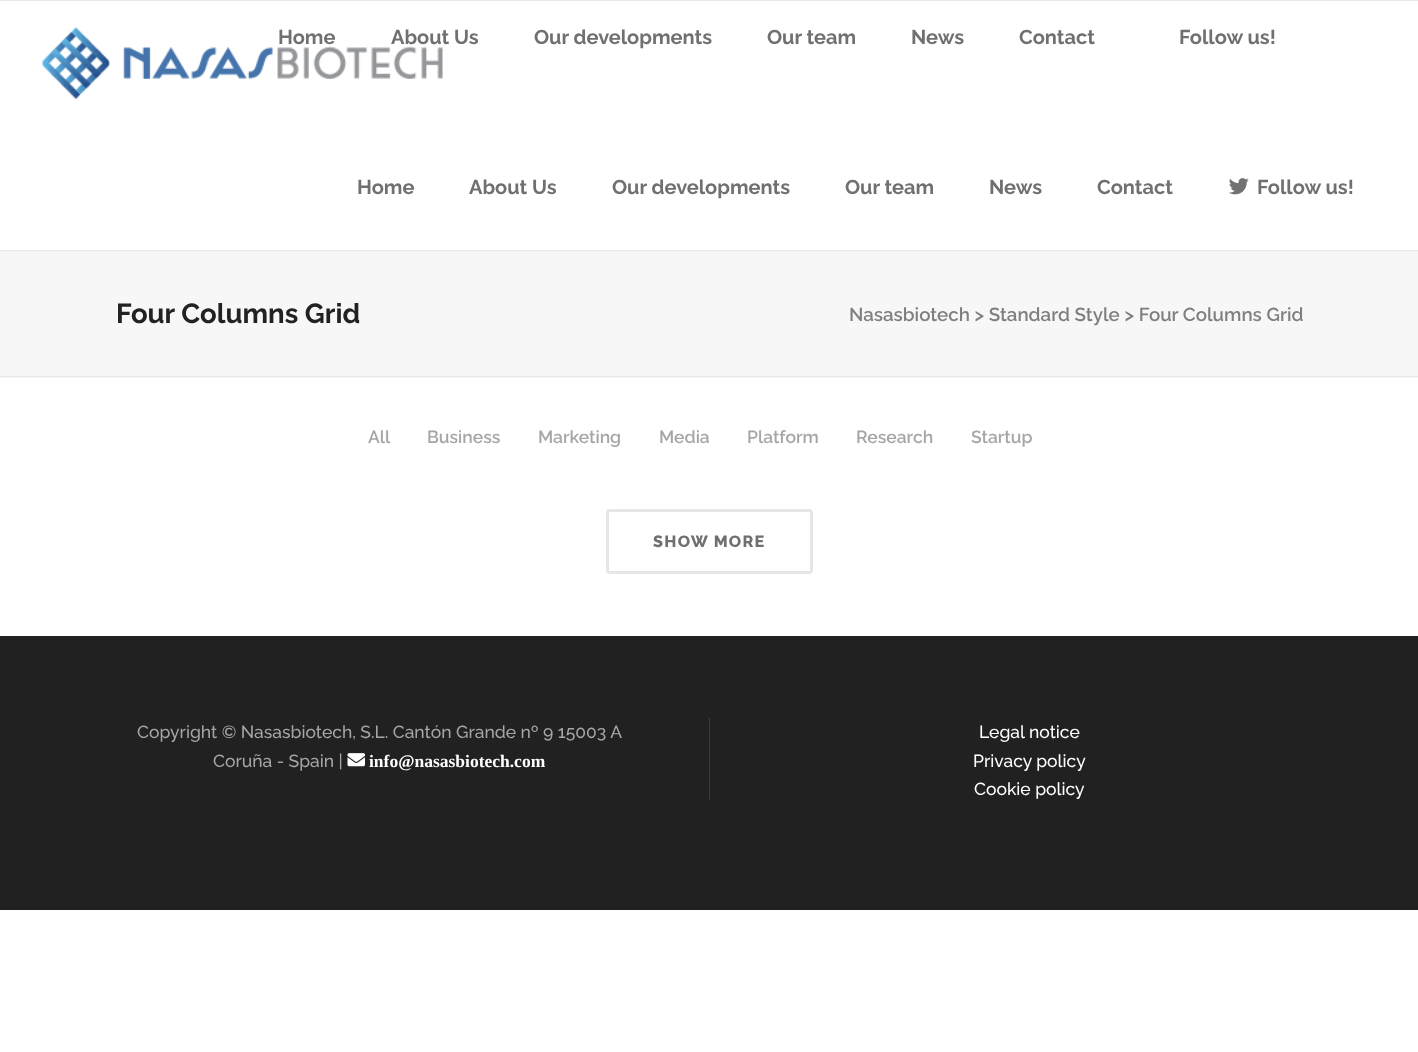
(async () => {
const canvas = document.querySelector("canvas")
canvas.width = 1418
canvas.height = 1052
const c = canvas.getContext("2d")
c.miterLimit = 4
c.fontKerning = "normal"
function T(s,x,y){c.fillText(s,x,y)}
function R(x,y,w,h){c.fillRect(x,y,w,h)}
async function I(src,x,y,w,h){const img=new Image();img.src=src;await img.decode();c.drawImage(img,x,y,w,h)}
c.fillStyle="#fff"
R(0,0,1418,1052)
c.fillStyle="#e7e7e7"
R(0,0,1418,1)
await I("1.png",42,27,401,72)
c.font="bold 20px Raleway"
c.fillStyle="#707070"
T("Home",278,44)
T("About Us",391,44)
T("Our developments",534,44)
T("Our team",767,44)
T("News",911,44)
T("Contact",1019,44)
T("Follow us!",1179,44)
T("Home",357,194)
T("About Us",469,194)
T("Our developments",612,194)
T("Our team",845,194)
T("News",989,194)
T("Contact",1097,194)
await I("2.png",1229,178,20,17)
T("Follow us!",1257,194)
c.fillStyle="#f7f7f7"
R(0,251,1418,127)
c.fillStyle="#e7e7e7"
R(0,250,1418,1)
R(0,376,1418,1)
c.font="bold 27.5px Raleway"
c.fillStyle="#222"
T("Four Columns Grid",116,323)
c.font="600 18.75px Raleway"
c.fillStyle="#7f7f7f"
T("Nasasbiotech > Standard Style > Four Columns Grid",849,321)
c.font="600 17.5px Raleway"
c.fillStyle="#a6a6a6"
T("All",368,443)
T("Business",427,443)
T("Marketing",538,443)
T("Media",659,443)
T("Platform",747,443)
T("Research",856,443)
T("Startup",971,443)
c.beginPath()
c.roundRect(607.5,510.5,204,62,2.5)
c.strokeStyle="#e6e6e6"
c.lineWidth=3
c.stroke()
c.letterSpacing="1.25px"
c.font="800 16.25px Raleway"
c.fillStyle="#707070"
T("SHOW MORE",653,547)
c.fillStyle="#212121"
R(0,636,1418,274)
c.fillStyle="#3b3b3b"
R(709,718,1,82)
c.letterSpacing="0px"
c.font="500 17.5px Raleway"
c.fillStyle="#a6a6a6"
T("Copyright © Nasasbiotech, S.L. Cantón Grande nº 9 15003 A",137,738)
T("Coruña - Spain |",213,767)
await I("3.png",347,753,18,14)
c.font="bold 17.5px Liberation Serif"
c.fillStyle="#fff"
T("info@nasasbiotech.com",369,767)
c.font="500 17.5px Raleway"
T("Legal notice",979,738)
T("Privacy policy",973,767)
T("Cookie policy",974,795)
})()
